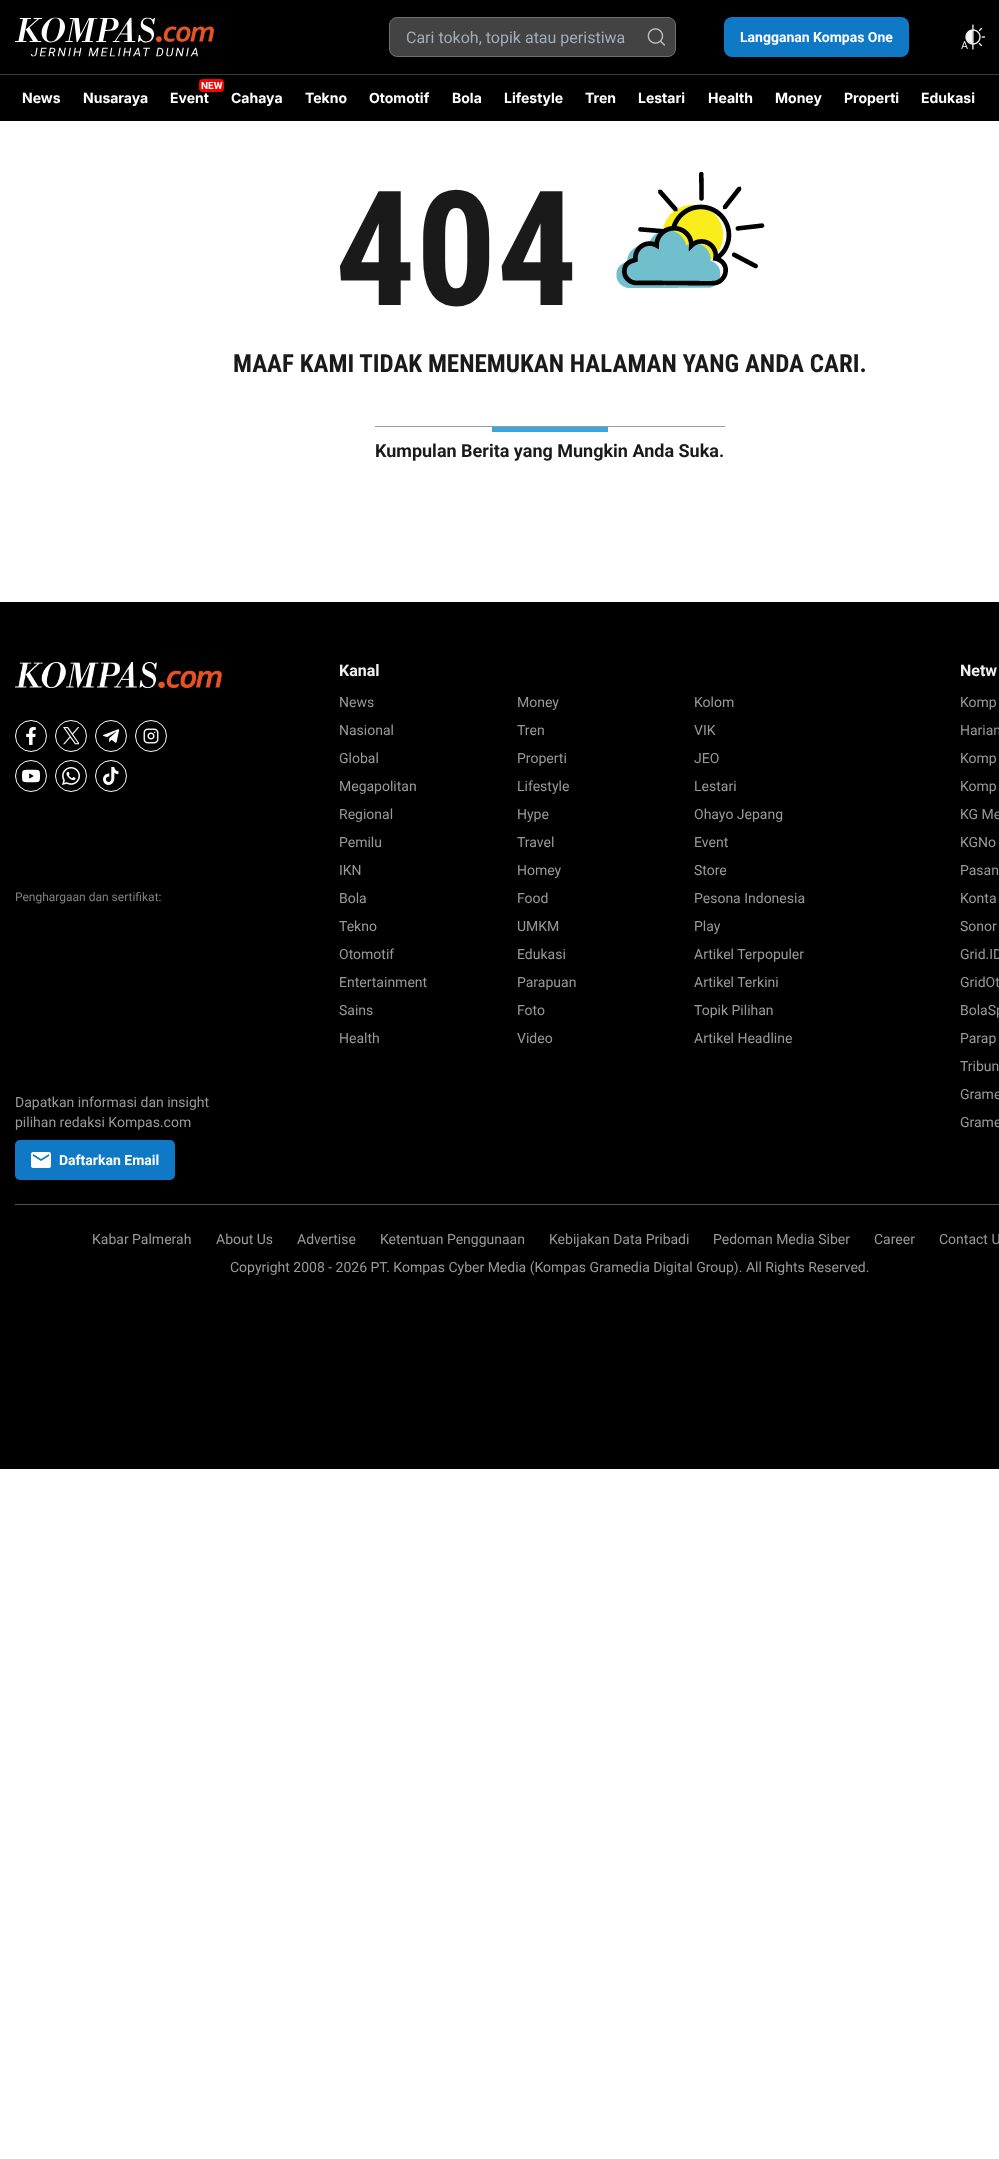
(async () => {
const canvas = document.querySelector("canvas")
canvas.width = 999
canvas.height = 2159
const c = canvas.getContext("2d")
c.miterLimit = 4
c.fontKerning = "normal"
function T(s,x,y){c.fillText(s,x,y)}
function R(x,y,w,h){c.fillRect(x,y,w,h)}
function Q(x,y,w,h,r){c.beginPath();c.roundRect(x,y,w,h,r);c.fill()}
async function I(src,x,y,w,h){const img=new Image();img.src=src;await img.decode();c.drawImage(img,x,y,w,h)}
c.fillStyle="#fff"
R(0,0,999,2159)
c.fillStyle="#000"
R(0,0,999,121)
await I("1.png",15,17,199,40)
c.fillStyle="#434343"
c.beginPath()
c.roundRect(389.5,17.5,286,39,7.5)
c.fill()
c.strokeStyle="#6c6f75"
c.stroke()
c.font="16px Roboto"
c.fillStyle="#a1adb9"
T("Cari tokoh, topik atau peristiwa",406,43)
await I("2.png",647,28,19,18)
c.fillStyle="#0f79c6"
Q(724,17,185,40,8)
c.font="bold 14px Roboto"
c.fillStyle="#fff"
T("Langganan Kompas One",740,42)
await I("3.png",961,24,24,26)
c.fillStyle="#383838"
R(0,74,999,1)
c.font="bold 14px Inter"
c.fillStyle="#fff"
T("News",22,103)
T("Nusaraya",83,103)
c.fillStyle="#f00"
Q(199,79,25,13,4)
c.font="bold 10px Roboto"
c.fillStyle="#fff"
T("NEW",201,89)
c.font="bold 14px Inter"
T("Event",170,103)
T("Cahaya",231,103)
T("Tekno",305,103)
T("Otomotif",369,103)
T("Bola",452,103)
T("Lifestyle",504,103)
T("Tren",585,103)
T("Lestari",638,103)
T("Health",708,103)
T("Money",775,103)
T("Properti",844,103)
T("Edukasi",921,103)
c.font="bold 160px Roboto Condensed"
c.fillStyle="#1a1a1a"
T("404",335,305)
await I("4.png",616,172,149,116)
c.font="bold 25px Roboto Condensed"
T("MAAF KAMI TIDAK MENEMUKAN HALAMAN YANG ANDA CARI.",233,372)
c.fillStyle="#9b9b9b"
R(375,426,350,1)
c.fillStyle="#3ca5dd"
R(492,427,116,5)
c.font="bold 18px Roboto"
c.fillStyle="#1a1a1a"
T("Kumpulan Berita yang Mungkin Anda Suka.",375,457)
c.fillStyle="#000"
R(0,602,999,867)
await I("5.png",15,662,207,26)
await I("6.png",26,727,10,18)
c.beginPath()
c.arc(31,736,15.5,0,7)
c.strokeStyle="#fbfbfb"
c.stroke()
await I("7.png",63,727,16,18)
c.beginPath()
c.arc(71,736,15.5,0,7)
c.stroke()
await I("8.png",103,729,17,14)
c.beginPath()
c.arc(111,736,15.5,0,7)
c.stroke()
await I("9.png",143,728,16,16)
c.beginPath()
c.arc(151,736,15.5,0,7)
c.stroke()
await I("10.png",22,769,18,14)
c.beginPath()
c.arc(31,776,15.5,0,7)
c.stroke()
await I("11.png",62,767,18,18)
c.beginPath()
c.arc(71,776,15.5,0,7)
c.stroke()
await I("12.png",103,767,16,18)
c.beginPath()
c.arc(111,776,15.5,0,7)
c.stroke()
c.font="12px Roboto"
c.fillStyle="#808080"
T("Penghargaan dan sertifikat:",15,901)
c.font="14px Roboto"
c.fillStyle="#999"
T("Dapatkan informasi dan insight",15,1107)
T("pilihan redaksi Kompas.com",15,1127)
c.fillStyle="#0f79c6"
Q(15,1140,160,40,5)
await I("13.png",31,1152,20,16)
c.font="bold 14px Roboto"
c.fillStyle="#fff"
T("Daftarkan Email",59,1165)
c.font="bold 16px Roboto"
c.fillStyle="#efefef"
T("Kanal",339,676)
c.font="14px Roboto"
c.fillStyle="#999"
T("News",339,707)
T("Money",517,707)
T("Kolom",694,707)
T("Nasional",339,735)
T("Tren",517,735)
T("VIK",694,735)
T("Global",339,763)
T("Properti",517,763)
T("JEO",694,763)
T("Megapolitan",339,791)
T("Lifestyle",517,791)
T("Lestari",694,791)
T("Regional",339,819)
T("Hype",517,819)
T("Ohayo Jepang",694,819)
T("Pemilu",339,847)
T("Travel",517,847)
T("Event",694,847)
T("IKN",339,875)
T("Homey",517,875)
T("Store",694,875)
T("Bola",339,903)
T("Food",517,903)
T("Pesona Indonesia",694,903)
T("Tekno",339,931)
T("UMKM",517,931)
T("Play",694,931)
T("Otomotif",339,959)
T("Edukasi",517,959)
T("Artikel Terpopuler",694,959)
T("Entertainment",339,987)
T("Parapuan",517,987)
T("Artikel Terkini",694,987)
T("Sains",339,1015)
T("Foto",517,1015)
T("Topik Pilihan",694,1015)
T("Health",339,1043)
T("Video",517,1043)
T("Artikel Headline",694,1043)
c.font="bold 16px Roboto"
c.fillStyle="#efefef"
T("Netw",960,676)
c.font="14px Roboto"
c.fillStyle="#999"
T("Komp",960,707)
T("Harian",960,735)
T("Komp",960,763)
T("Komp",960,791)
T("KG Me",960,819)
T("KGNo",960,847)
T("Pasan",960,875)
T("Konta",960,903)
T("Sonor",960,931)
T("Grid.ID",960,959)
T("GridOt",960,987)
T("BolaSp",960,1015)
T("Parap",960,1043)
T("Tribun",960,1071)
T("Grame",960,1099)
T("Grame",960,1127)
c.fillStyle="#515151"
R(15,1204,984,1)
c.fillStyle="#999"
T("Kabar Palmerah",92,1244)
T("About Us",216,1244)
T("Advertise",297,1244)
T("Ketentuan Penggunaan",380,1244)
T("Kebijakan Data Pribadi",549,1244)
T("Pedoman Media Siber",713,1244)
T("Career",874,1244)
T("Contact U",939,1244)
T("Copyright 2008 - 2026 PT. Kompas Cyber Media (Kompas Gramedia Digital Group). All Rights Reserved.",230,1272)
})()
